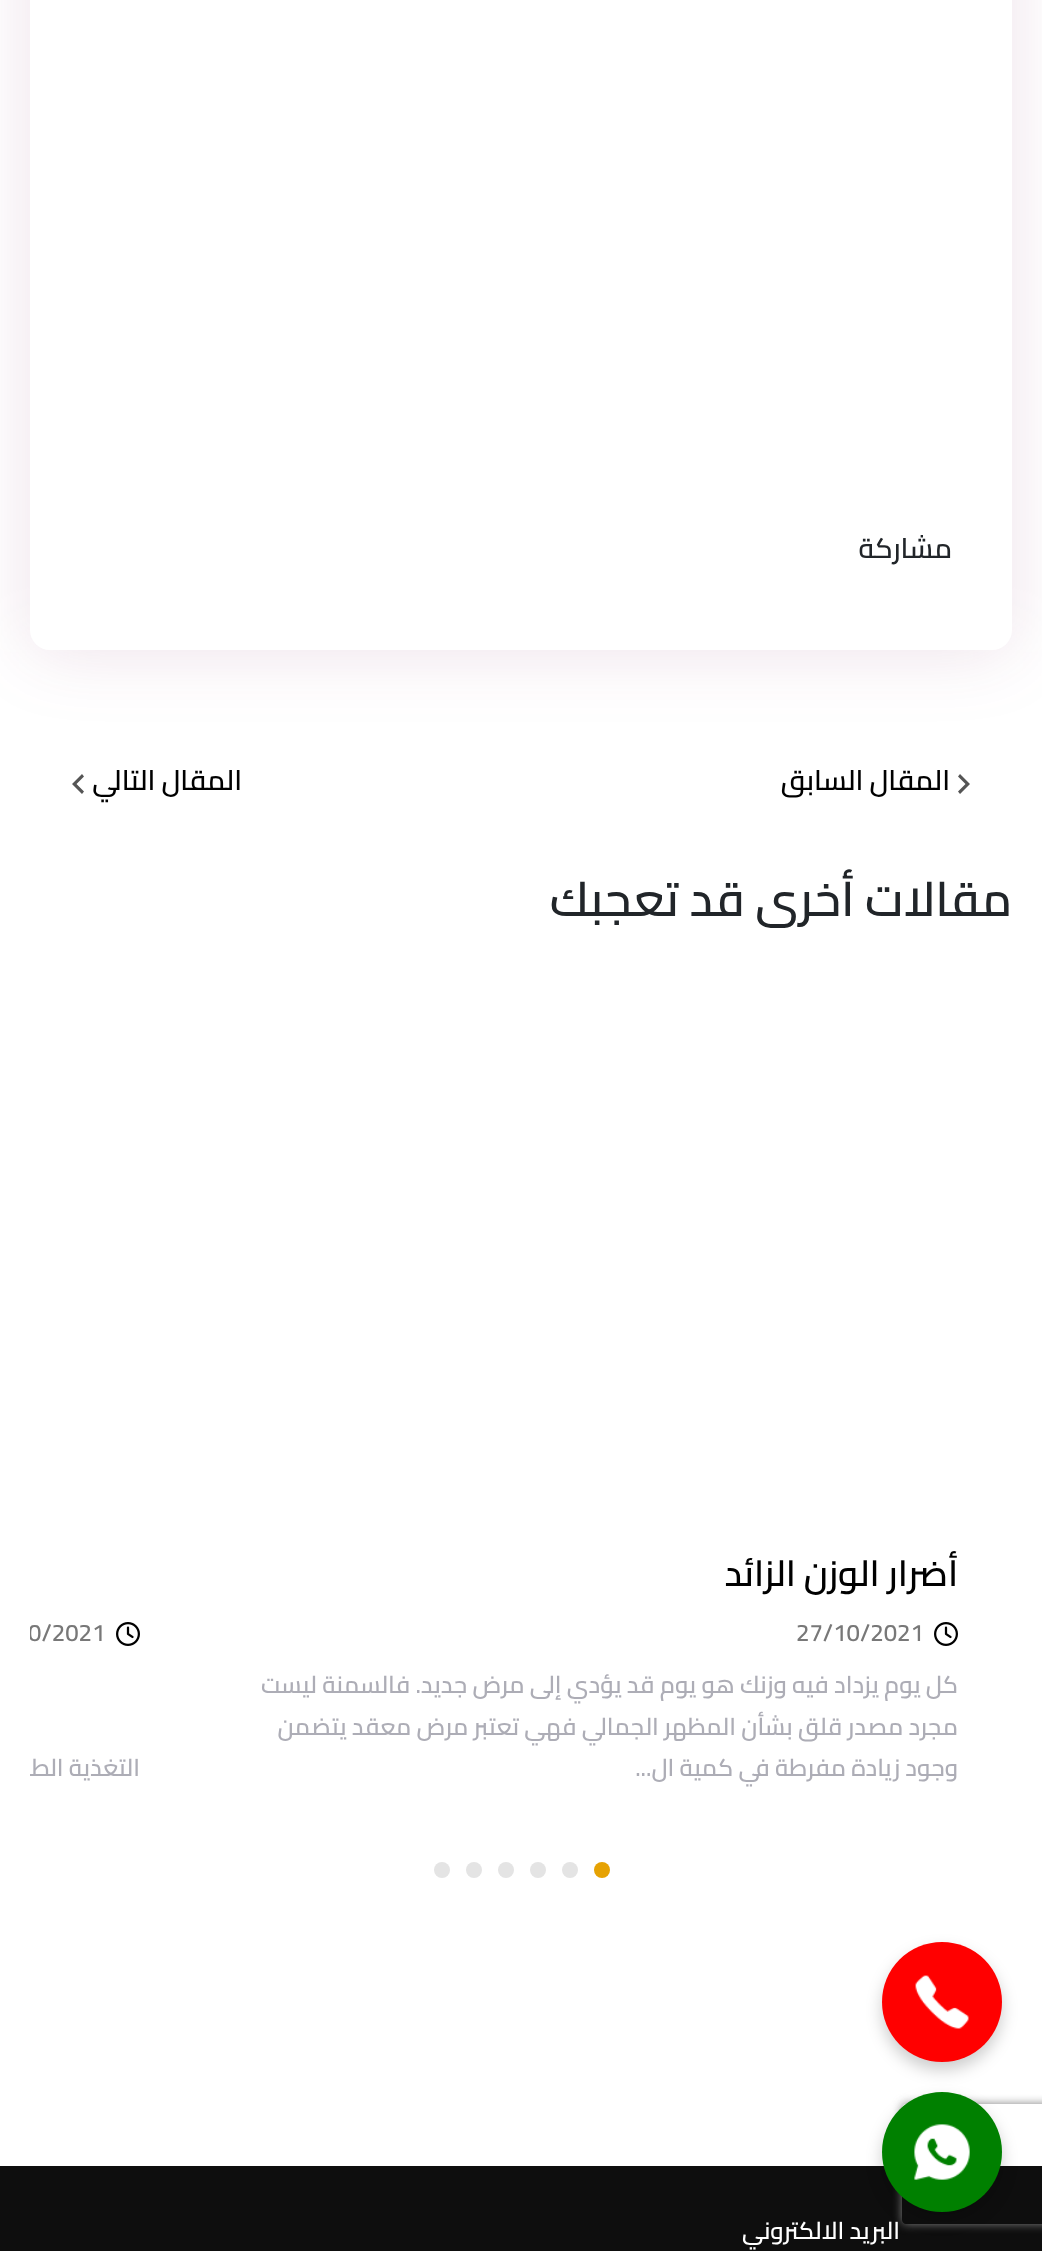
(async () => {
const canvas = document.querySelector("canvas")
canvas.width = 1042
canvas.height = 2251
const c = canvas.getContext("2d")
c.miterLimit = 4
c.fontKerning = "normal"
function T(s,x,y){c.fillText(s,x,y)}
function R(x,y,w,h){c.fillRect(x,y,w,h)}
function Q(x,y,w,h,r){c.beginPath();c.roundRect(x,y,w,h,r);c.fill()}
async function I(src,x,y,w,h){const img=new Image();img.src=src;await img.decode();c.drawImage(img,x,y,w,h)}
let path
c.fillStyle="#fff"
R(0,0,1042,2251)
c.fillStyle="#7b1e5e21"
c.filter="blur(35px)"
c.beginPath()
c.roundRect(30,-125,982,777,20)
c.fill()
c.filter="none"
c.fillStyle="#fff"
Q(30,-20,982,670,20)
c.direction="rtl"
c.font="600 28px Cairo"
c.fillStyle="#212529"
T("مشاركة",952,558)
c.fillStyle="#555"
path = new Path2D("M960 774l-2 2.5l7.5 7.5l-7.5 7.5l2 2.5l10-10z")
c.fill(path)
c.fillStyle="#000"
T("المقال السابق",950,790)
T("المقال التالي",242,790)
c.fillStyle="#555"
path = new Path2D("M82 794l2-2.5l-7.5-7.5l7.5-7.5l-2-2.5l-10 10z")
c.fill(path)
c.font="600 48px Cairo"
c.fillStyle="#212529"
T("مقالات أخرى قد تعجبك",1012,916)
c.font="600 36px Cairo"
c.fillStyle="#000"
T("أضرار الوزن الزائد",958,1586)
await I("1.png",934,1622,24,24)
c.direction="ltr"
c.font="600 24px Cairo"
c.fillStyle="#787878"
T("27/10/2021",796,1641)
c.direction="rtl"
c.fillStyle="#adadb6"
T("كل يوم يزداد فيه وزنك هو يوم قد يؤدي إلى مرض جديد. فالسمنة ليست",958,1693)
T("مجرد مصدر قلق بشأن المظهر الجمالي فهي تعتبر مرض معقد يتضمن",958,1735)
T("وجود زيادة مفرطة في كمية ال...",958,1776)
await I("1.png",116,1622,24,24)
c.save()
c.beginPath()
c.rect(30,960,982,950)
c.clip()
c.direction="ltr"
c.fillStyle="#787878"
T("0/2021",28,1641)
c.restore()
c.save()
c.beginPath()
c.rect(30,1666,110,124)
c.clip()
T("التغذية الطب...",140,1776)
c.restore()
c.fillStyle="#e6a203"
c.beginPath()
c.arc(602,1870,8,0,7)
c.fill()
c.fillStyle="#e4e4e4"
c.beginPath()
c.arc(570,1870,8,0,7)
c.fill()
c.beginPath()
c.arc(538,1870,8,0,7)
c.fill()
c.beginPath()
c.arc(506,1870,8,0,7)
c.fill()
c.beginPath()
c.arc(474,1870,8,0,7)
c.fill()
c.beginPath()
c.arc(442,1870,8,0,7)
c.fill()
c.fillStyle="#00000033"
c.filter="blur(8px)"
c.beginPath()
c.roundRect(882,1950,120,120,60)
c.fill()
c.filter="none"
c.fillStyle="#f00"
c.beginPath()
c.arc(942,2002,60,0,7)
c.fill()
await I("2.png",915,1975,54,54)
c.fillStyle="#0e0e0e"
R(0,2166,1042,85)
c.fillStyle="#00000033"
c.filter="blur(8px)"
c.beginPath()
c.roundRect(882,2100,120,120,60)
c.fill()
c.filter="none"
c.save()
path = new Path2D("M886 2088h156v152h-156zm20 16h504c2 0 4 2 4 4v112c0 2-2 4-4 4h-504c-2 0-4-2-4-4v-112c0-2 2-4 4-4z")
c.clip(path,"evenodd")
c.fillStyle="#808080"
c.filter="blur(5px)"
c.beginPath()
c.roundRect(902,2104,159,120,4)
c.fill()
c.filter="none"
c.restore()
c.fillStyle="#008000"
c.beginPath()
c.arc(942,2152,60,0,7)
c.fill()
await I("3.png",914,2124,56,56)
c.fillStyle="#fff"
T("البريد الالكتروني",900,2239)
})()
